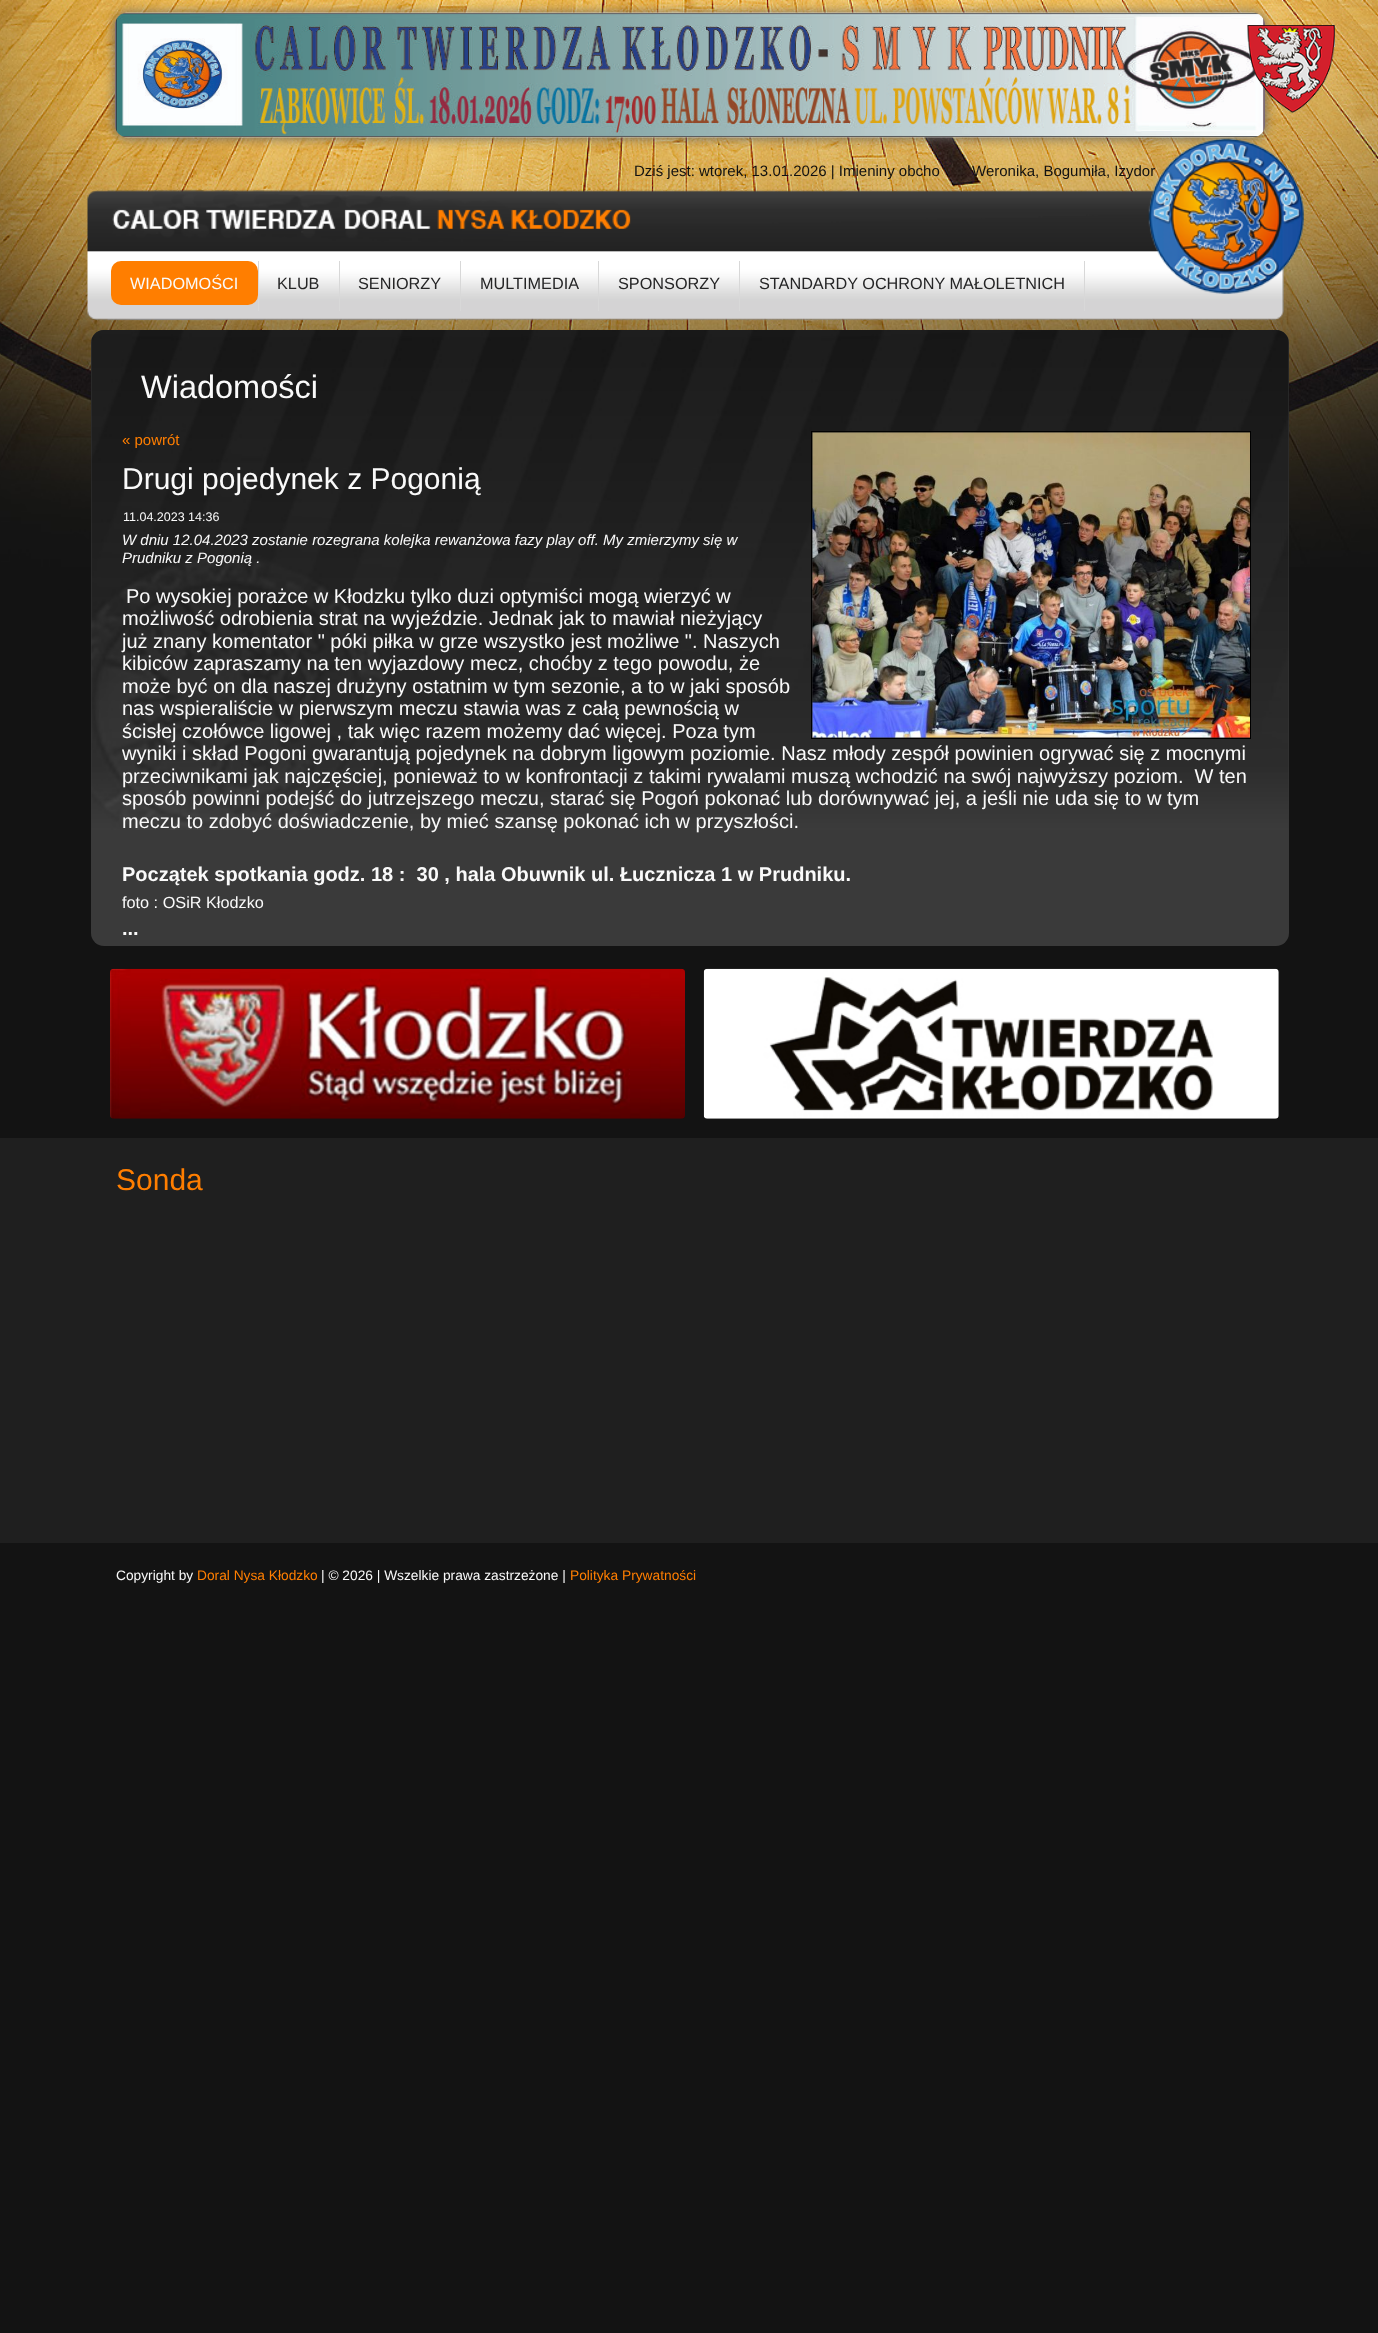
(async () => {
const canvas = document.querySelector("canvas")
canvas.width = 1378
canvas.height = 2333
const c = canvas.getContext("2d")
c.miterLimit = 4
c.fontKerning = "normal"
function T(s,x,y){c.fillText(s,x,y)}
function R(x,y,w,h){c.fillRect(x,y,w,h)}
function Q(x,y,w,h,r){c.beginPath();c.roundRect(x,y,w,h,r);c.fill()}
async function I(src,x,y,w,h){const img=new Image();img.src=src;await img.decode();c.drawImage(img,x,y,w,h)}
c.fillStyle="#131313"
R(0,0,1378,2333)
await I("1.png",0,0,1378,567)
c.fillStyle="#666"
c.filter="blur(6px)"
c.beginPath()
c.roundRect(115,13,1150,125,13)
c.fill()
c.filter="none"
await I("2.png",115,12,1150,126)
await I("3.png",1247,25,88,88)
await I("4.png",87,138,1217,183)
c.font="15px Liberation Sans"
c.fillStyle="#111"
T("Dziś jest: wtorek, 13.01.2026 | Imieniny obcho",634,176)
T("Weronika, Bogumiła, Izydor",972,176)
c.fillStyle="#d8d8d8"
R(258,261,1,50)
c.fillStyle="#ff7e00"
Q(111,261,147,44,10)
c.font="16.25px Liberation Sans"
c.fillStyle="#fafafa"
T("WIADOMOŚCI",130,289)
c.fillStyle="#d8d8d8"
R(339,261,1,50)
c.fillStyle="#252526"
T("KLUB",277,289)
c.fillStyle="#d8d8d8"
R(460,261,1,50)
c.fillStyle="#252526"
T("SENIORZY",358,289)
c.fillStyle="#d8d8d8"
R(598,261,1,50)
c.fillStyle="#252526"
T("MULTIMEDIA",480,289)
c.fillStyle="#d8d8d8"
R(739,261,1,50)
c.fillStyle="#252526"
T("SPONSORZY",618,289)
c.fillStyle="#d8d8d8"
R(1084,261,1,50)
c.fillStyle="#252526"
T("STANDARDY OCHRONY MAŁOLETNICH",759,289)
c.fillStyle="#3a3a3a"
Q(91,330,1198,616,13)
await I("5.png",91,330,1198,500)
c.font="32.5px Liberation Sans"
c.fillStyle="#fafafa"
T("Wiadomości",141,398)
c.font="15px Liberation Sans"
c.fillStyle="#ff7e00"
T("« powrót",122,445)
c.strokeStyle="#000"
c.strokeRect(811.5,431.5,439,307)
await I("6.png",812,432,438,306)
c.font="30px Liberation Sans"
c.fillStyle="#fafafa"
T("Drugi pojedynek z Pogonią",122,489)
c.font="12.5px Liberation Sans"
T("11.04.2023 14:36",123,521)
c.font="italic 15px Liberation Sans"
T("W dniu 12.04.2023 zostanie rozegrana kolejka rewanżowa fazy play off. My zmierzymy się w",122,545)
T("Prudniku z Pogonią .",122,563)
c.font="20px Liberation Sans"
T("Po wysokiej porażce w Kłodzku tylko duzi optymiści mogą wierzyć w",126,603)
T("możliwość odrobienia strat na wyjeździe. Jednak jak to mawiał nieżyjący",122,625)
T("już znany komentator \" póki piłka w grze wszystko jest możliwe \". Naszych",122,648)
T("kibiców zapraszamy na ten wyjazdowy mecz, choćby z tego powodu, że",122,670)
T("może być on dla naszej drużyny ostatnim w tym sezonie, a to w jaki sposób",122,693)
T("nas wspieraliście w pierwszym meczu stawia was z całą pewnością w",122,715)
T("ścisłej czołówce ligowej , tak więc razem możemy dać więcej. Poza tym",122,738)
T("wyniki i skład Pogoni gwarantują pojedynek na dobrym ligowym poziomie. Nasz młody zespół powinien ogrywać się z mocnymi",122,760)
T("przeciwnikami jak najczęściej, ponieważ to w konfrontacji z takimi rywalami muszą wchodzić na swój najwyższy poziom.  W ten",122,783)
T("sposób powinni podejść do jutrzejszego meczu, starać się Pogoń pokonać lub dorównywać jej, a jeśli nie uda się to w tym",122,805)
T("meczu to zdobyć doświadczenie, by mieć szansę pokonać ich w przyszłości.",122,828)
c.font="bold 20px Liberation Sans"
T("Początek spotkania godz. 18 :  30 , hala Obuwnik ul. Łucznicza 1 w Prudniku.",122,881)
c.font="16.25px Liberation Sans"
T("foto : OSiR Kłodzko",122,908)
c.font="bold 20px Liberation Sans"
T("...",122,935)
await I("7.png",110,968,575,151)
await I("8.png",703,968,576,151)
c.fillStyle="#1f1f1f"
R(0,1138,1378,405)
c.font="30px Liberation Sans"
c.fillStyle="#ff7e00"
T("Sonda",116,1190)
c.font="13.75px Liberation Sans"
c.fillStyle="#fafafa"
T("Copyright by",116,1580)
c.fillStyle="#ff7e00"
T("Doral Nysa Kłodzko",197,1580)
c.fillStyle="#fafafa"
T("| © 2026 | Wszelkie prawa zastrzeżone |",321,1580)
c.fillStyle="#ff7e00"
T("Polityka Prywatności",570,1580)
})()
